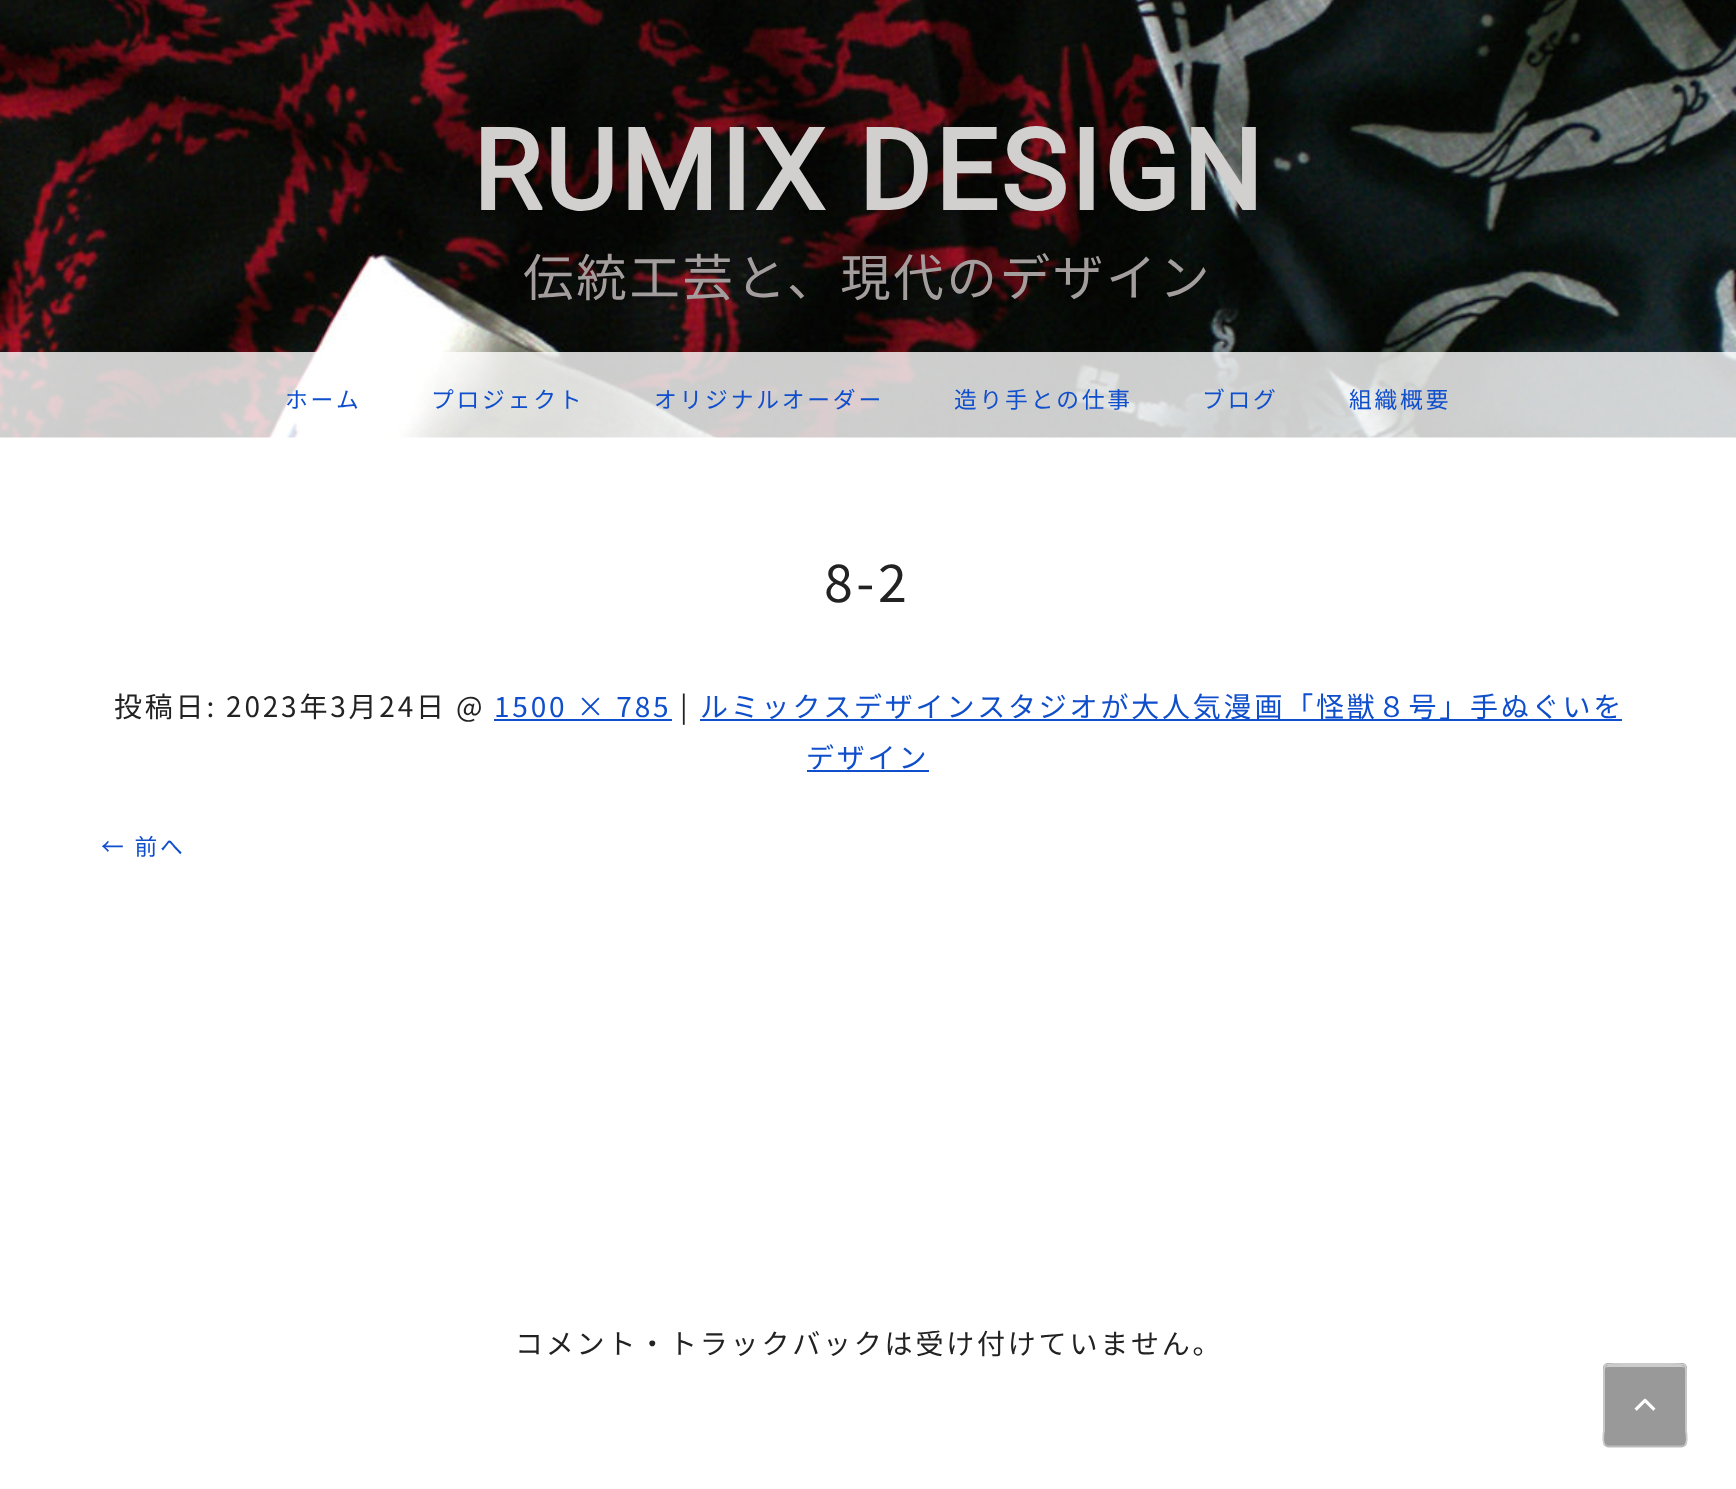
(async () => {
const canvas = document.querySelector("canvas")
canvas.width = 1736
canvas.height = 1489
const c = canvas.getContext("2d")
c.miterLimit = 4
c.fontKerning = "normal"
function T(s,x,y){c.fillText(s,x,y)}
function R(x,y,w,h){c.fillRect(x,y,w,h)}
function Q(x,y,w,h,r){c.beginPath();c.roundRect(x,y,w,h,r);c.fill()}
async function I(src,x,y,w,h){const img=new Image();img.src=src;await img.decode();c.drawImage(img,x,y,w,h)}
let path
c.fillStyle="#fff"
R(0,0,1736,1489)
await I("1.png",0,0,1736,438)
c.letterSpacing="2.8px"
c.font="bold 112px Roboto"
c.fillStyle="#d2cfcf"
T("RUMIX DESIGN",472,210)
c.font="50.4px Noto Sans JP"
c.fillStyle="#a39e9d"
T("伝統工芸と、現代のデザイン",523,296)
c.fillStyle="#ffffffcc"
R(0,352,1736,86)
c.font="22.75px Noto Sans JP"
c.fillStyle="#104fcc"
T("ホーム",285,408)
T("プロジェクト",431,408)
T("オリジナルオーダー",654,408)
T("造り手との仕事",954,408)
T("ブログ",1202,408)
T("組織概要",1349,408)
c.letterSpacing="3.5px"
c.font="52px Noto Sans JP"
c.fillStyle="#222"
T("8-2",824,602)
c.letterSpacing="2.8px"
c.font="28px Noto Sans JP"
T("投稿日: 2023年3月24日 @",114,717)
c.fillStyle="#104fcc"
T("1500 × 785",494,717)
R(494,719,178,2)
c.fillStyle="#222"
T("|",680,717)
c.fillStyle="#104fcc"
R(700,719,922,2)
T("ルミックスデザインスタジオが大人気漫画「怪獣８号」手ぬぐいを",700,717)
T("デザイン",806,768)
R(807,770,122,2)
c.font="22.75px Noto Sans JP"
T("← 前へ",101,855)
c.font="28px Noto Sans JP"
c.fillStyle="#222"
T("コメント・トラックバックは受け付けていません。",515,1354)
c.fillStyle="#999"
Q(1603,1363,84,84,5)
c.fillStyle="#ccc"
path = new Path2D("M1608 1367h74c2 0 3 1 3 3c0-8-11-5-16-5h-48c-5 0-16-3-16 5c0-2 1-3 3-3z")
c.fill(path)
path = new Path2D("M1685 1445l-3 1.5h-74l-3-1.5")
c.strokeStyle="#bbb"
c.lineWidth=1.8
c.stroke(path)
path = new Path2D("M1605 1445c-3-3-1-15-1-15v-49c0-19-2.5-17 16.5-17h49c19 0 16.5-2 16.5 17v49c0 0 2 12-1 15")
c.strokeStyle="#ccc"
c.stroke(path)
await I("2.png",1634,1398,22,13)
})()
